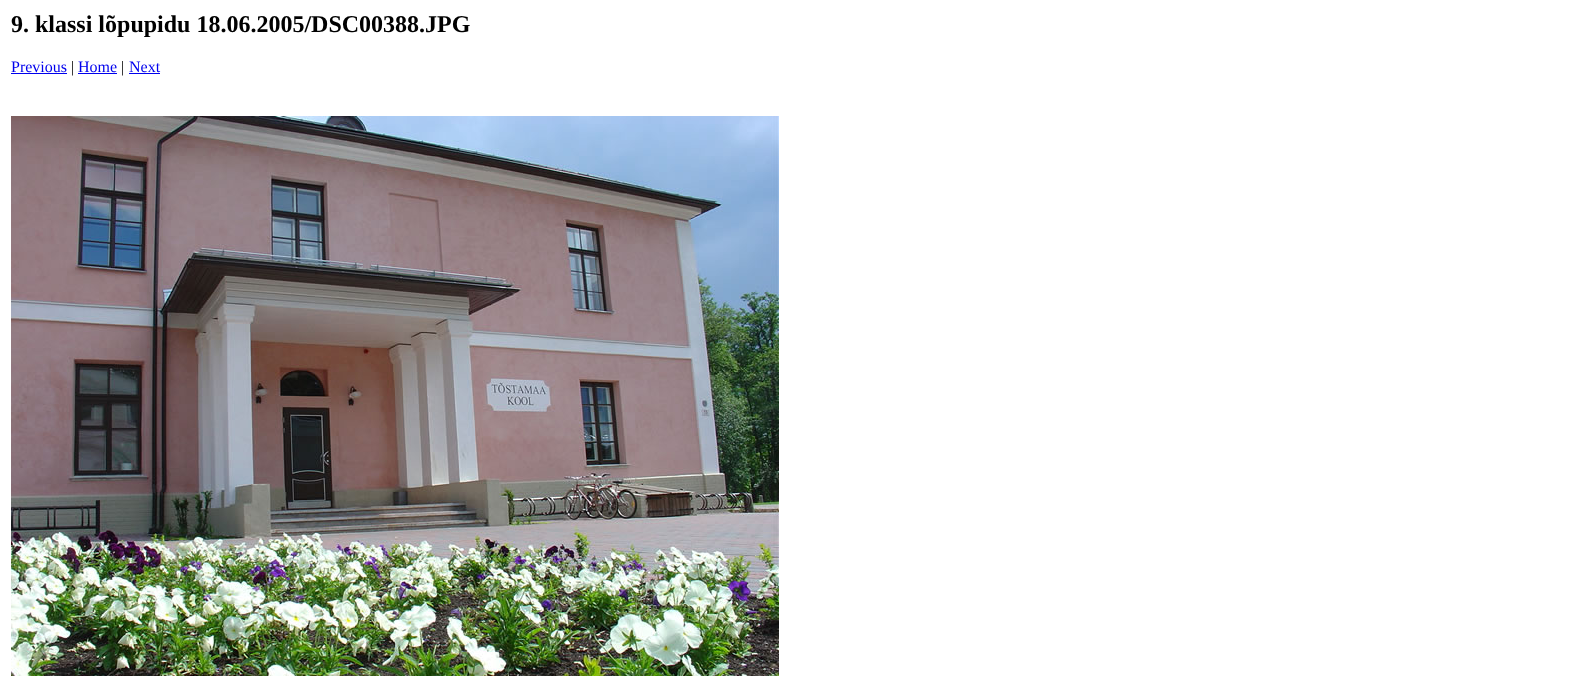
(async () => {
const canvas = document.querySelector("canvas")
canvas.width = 1569
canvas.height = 676
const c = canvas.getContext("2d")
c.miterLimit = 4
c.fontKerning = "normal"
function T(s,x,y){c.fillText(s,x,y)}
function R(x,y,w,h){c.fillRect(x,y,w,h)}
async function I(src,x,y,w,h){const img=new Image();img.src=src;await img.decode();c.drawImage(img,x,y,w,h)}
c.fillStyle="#fff"
R(0,0,1569,676)
c.font="bold 24px Liberation Serif"
c.fillStyle="#000"
T("9. klassi lõpupidu 18.06.2005/DSC00388.JPG",11,32)
c.font="16px Liberation Serif"
c.fillStyle="#00e"
T("Previous",11,72)
R(11,73,56,1)
c.fillStyle="#000"
T("|",71,72)
c.fillStyle="#00e"
T("Home",78,72)
R(78,73,39,1)
c.fillStyle="#000"
T("|",121,72)
c.fillStyle="#00e"
T("Next",129,72)
R(129,73,31,1)
await I("1.png",11,116,768,560)
})()
